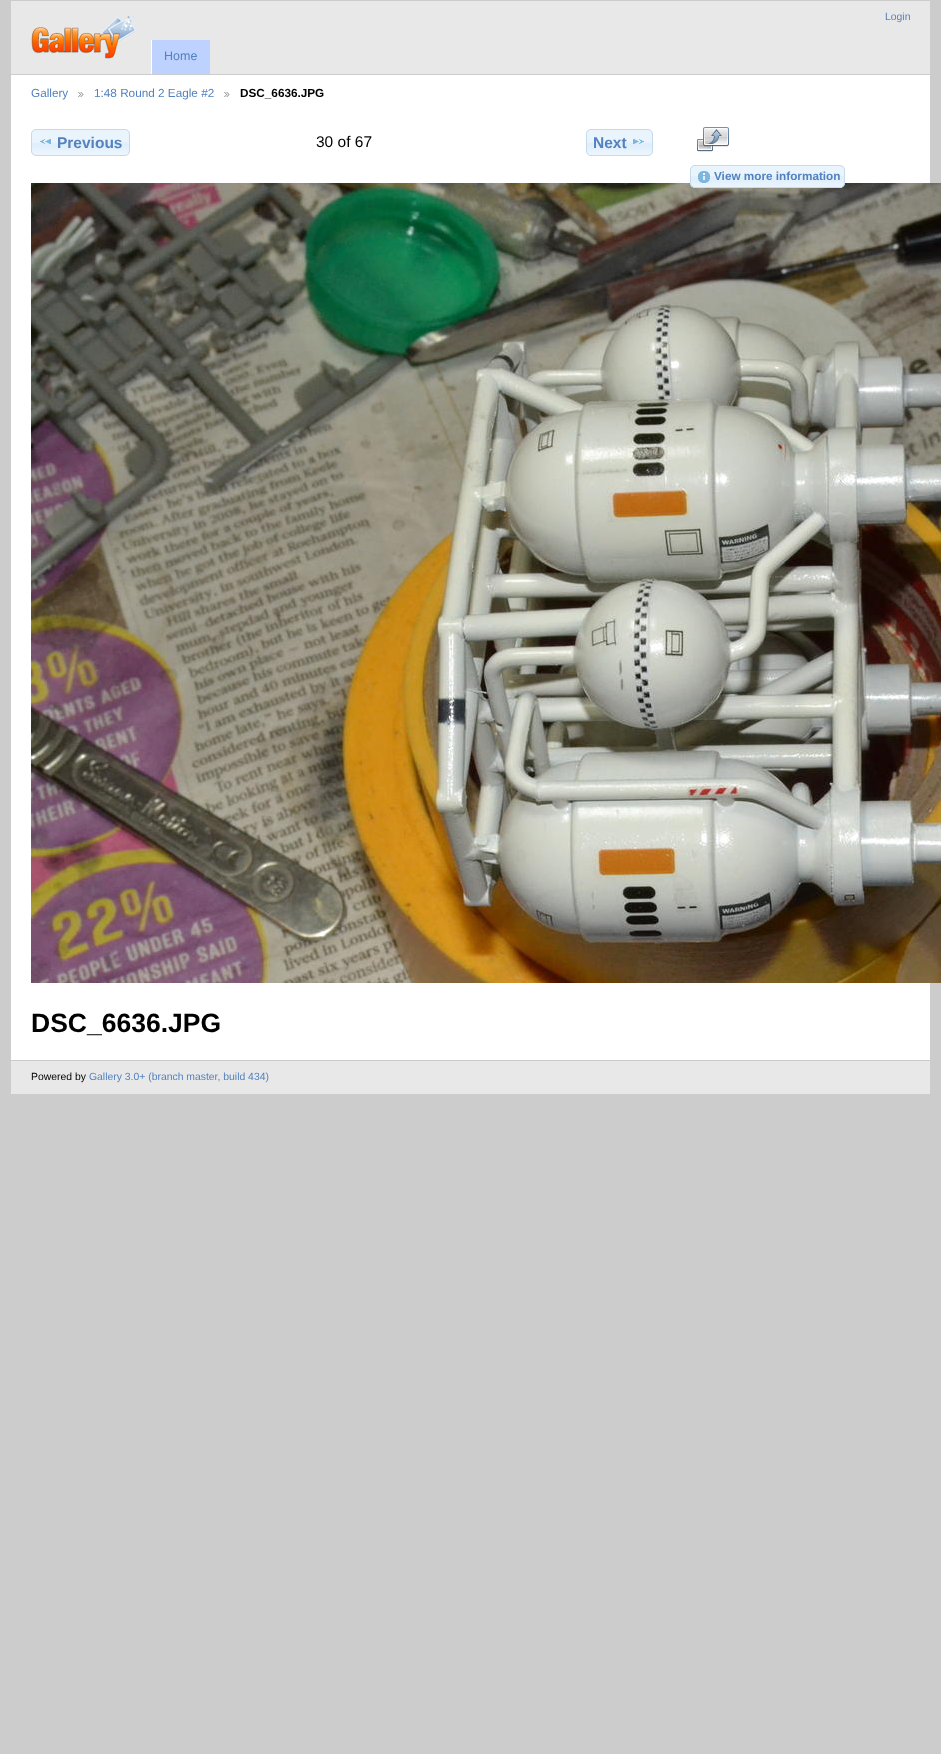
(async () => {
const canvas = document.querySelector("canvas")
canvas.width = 941
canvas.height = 1754
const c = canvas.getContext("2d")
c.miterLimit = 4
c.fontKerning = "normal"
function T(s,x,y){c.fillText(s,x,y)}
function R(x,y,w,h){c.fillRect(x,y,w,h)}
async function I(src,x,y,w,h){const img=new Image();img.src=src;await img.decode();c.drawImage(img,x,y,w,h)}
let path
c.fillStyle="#ccc"
R(0,0,941,1754)
c.fillStyle="#fff"
R(11,75,919,985)
c.fillStyle="#e8e8e8"
R(11,1,919,73)
await I("1.png",31,15,106,44)
c.fillStyle="#bdd2ff"
R(151,39,59,35)
c.fillStyle="#dee9ff"
path = new Path2D("M151 39h59v1h-58z")
c.fill(path)
c.fillStyle="#fff"
path = new Path2D("M151 74v-35l1 1v34z")
c.fill(path)
c.font="12.5px Liberation Sans"
c.fillStyle="#5382bf"
T("Home",164,60)
c.font="10.4px Liberation Sans"
T("Login",885,20)
c.font="11.75px Liberation Sans"
T("Gallery",31,97)
await I("2.png",78,92,6,5)
T("1:48 Round 2 Eagle #2",94,97)
await I("2.png",224,92,6,5)
c.font="bold 11.75px Liberation Sans"
c.fillStyle="#000"
T("DSC_6636.JPG",240,97)
await I("3.png",31,129,99,27)
c.beginPath()
c.roundRect(31.5,129.5,98,26,4.5)
c.strokeStyle="#c5dbec"
c.stroke()
await I("4.png",40,139,11,5)
c.font="bold 15.5px Liberation Sans"
c.fillStyle="#5382bf"
T("Previous",57,148)
c.font="15.5px Liberation Sans"
c.fillStyle="#000"
T("30 of 67",316,147)
await I("5.png",586,129,67,27)
c.beginPath()
c.roundRect(586.5,129.5,66,26,4.5)
c.stroke()
c.font="bold 15.5px Liberation Sans"
c.fillStyle="#5382bf"
T("Next",593,148)
await I("6.png",633,139,11,5)
await I("7.png",31,183,910,800)
c.font="bold 26.5px Liberation Sans"
c.fillStyle="#000"
T("DSC_6636.JPG",31,1032)
await I("8.png",697,127,32,25)
await I("9.png",690,165,155,23)
c.beginPath()
c.roundRect(690.5,165.5,154,22,4.5)
c.stroke()
await I("10.png",698,171,12,12)
c.font="bold 11.75px Liberation Sans"
c.fillStyle="#5382bf"
T("View more information",714,180)
c.fillStyle="#e8e8e8"
R(11,1061,919,33)
c.font="10.4px Liberation Sans"
c.fillStyle="#000"
T("Powered by",31,1080)
c.fillStyle="#5382bf"
T("Gallery 3.0+ (branch master, build 434)",89,1080)
})()
